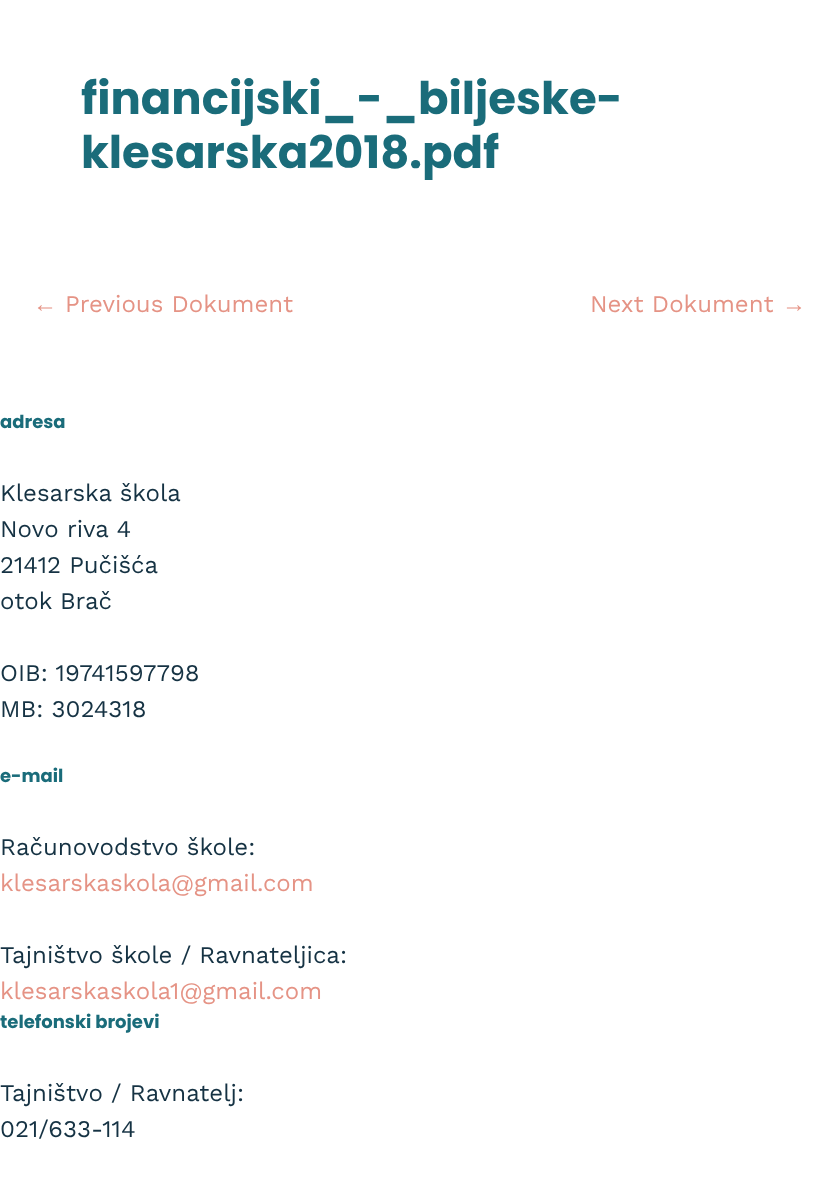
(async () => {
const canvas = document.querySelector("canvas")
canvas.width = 838
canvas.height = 1180
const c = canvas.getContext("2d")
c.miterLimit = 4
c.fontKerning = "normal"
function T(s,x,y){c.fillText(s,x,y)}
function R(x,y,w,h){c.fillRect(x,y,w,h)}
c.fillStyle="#fff"
R(0,0,838,1180)
c.font="bold 45px Poppins"
c.fillStyle="#1a6c7a"
T("financijski_-_biljeske-",81,114)
T("klesarska2018.pdf",81,168)
c.font="24px Liberation Sans"
c.fillStyle="#e59385"
T("←",33,312)
c.font="24px Work Sans"
T("Previous Dokument",65,312)
T("Next Dokument",590,312)
c.font="24px Liberation Sans"
T("→",782,312)
c.font="bold 18px Poppins"
c.fillStyle="#1a6c7a"
T("adresa",0,428)
c.font="24px Work Sans"
c.fillStyle="#153243"
T("Klesarska škola",0,501)
T("Novo riva 4",0,537)
T("21412 Pučišća",0,573)
T("otok Brač",0,609)
T("OIB: 19741597798",0,681)
T("MB: 3024318",0,717)
c.font="bold 18px Poppins"
c.fillStyle="#1a6c7a"
T("e-mail",0,782)
c.font="24px Work Sans"
c.fillStyle="#153243"
T("Računovodstvo škole:",0,855)
c.fillStyle="#e59385"
T("klesarskaskola@gmail.com",0,891)
c.fillStyle="#153243"
T("Tajništvo škole / Ravnateljica:",0,963)
c.fillStyle="#e59385"
T("klesarskaskola1@gmail.com",0,999)
c.font="bold 18px Poppins"
c.fillStyle="#1a6c7a"
T("telefonski brojevi",0,1028)
c.font="24px Work Sans"
c.fillStyle="#153243"
T("Tajništvo / Ravnatelj:",0,1101)
T("021/633-114",0,1137)
})()
